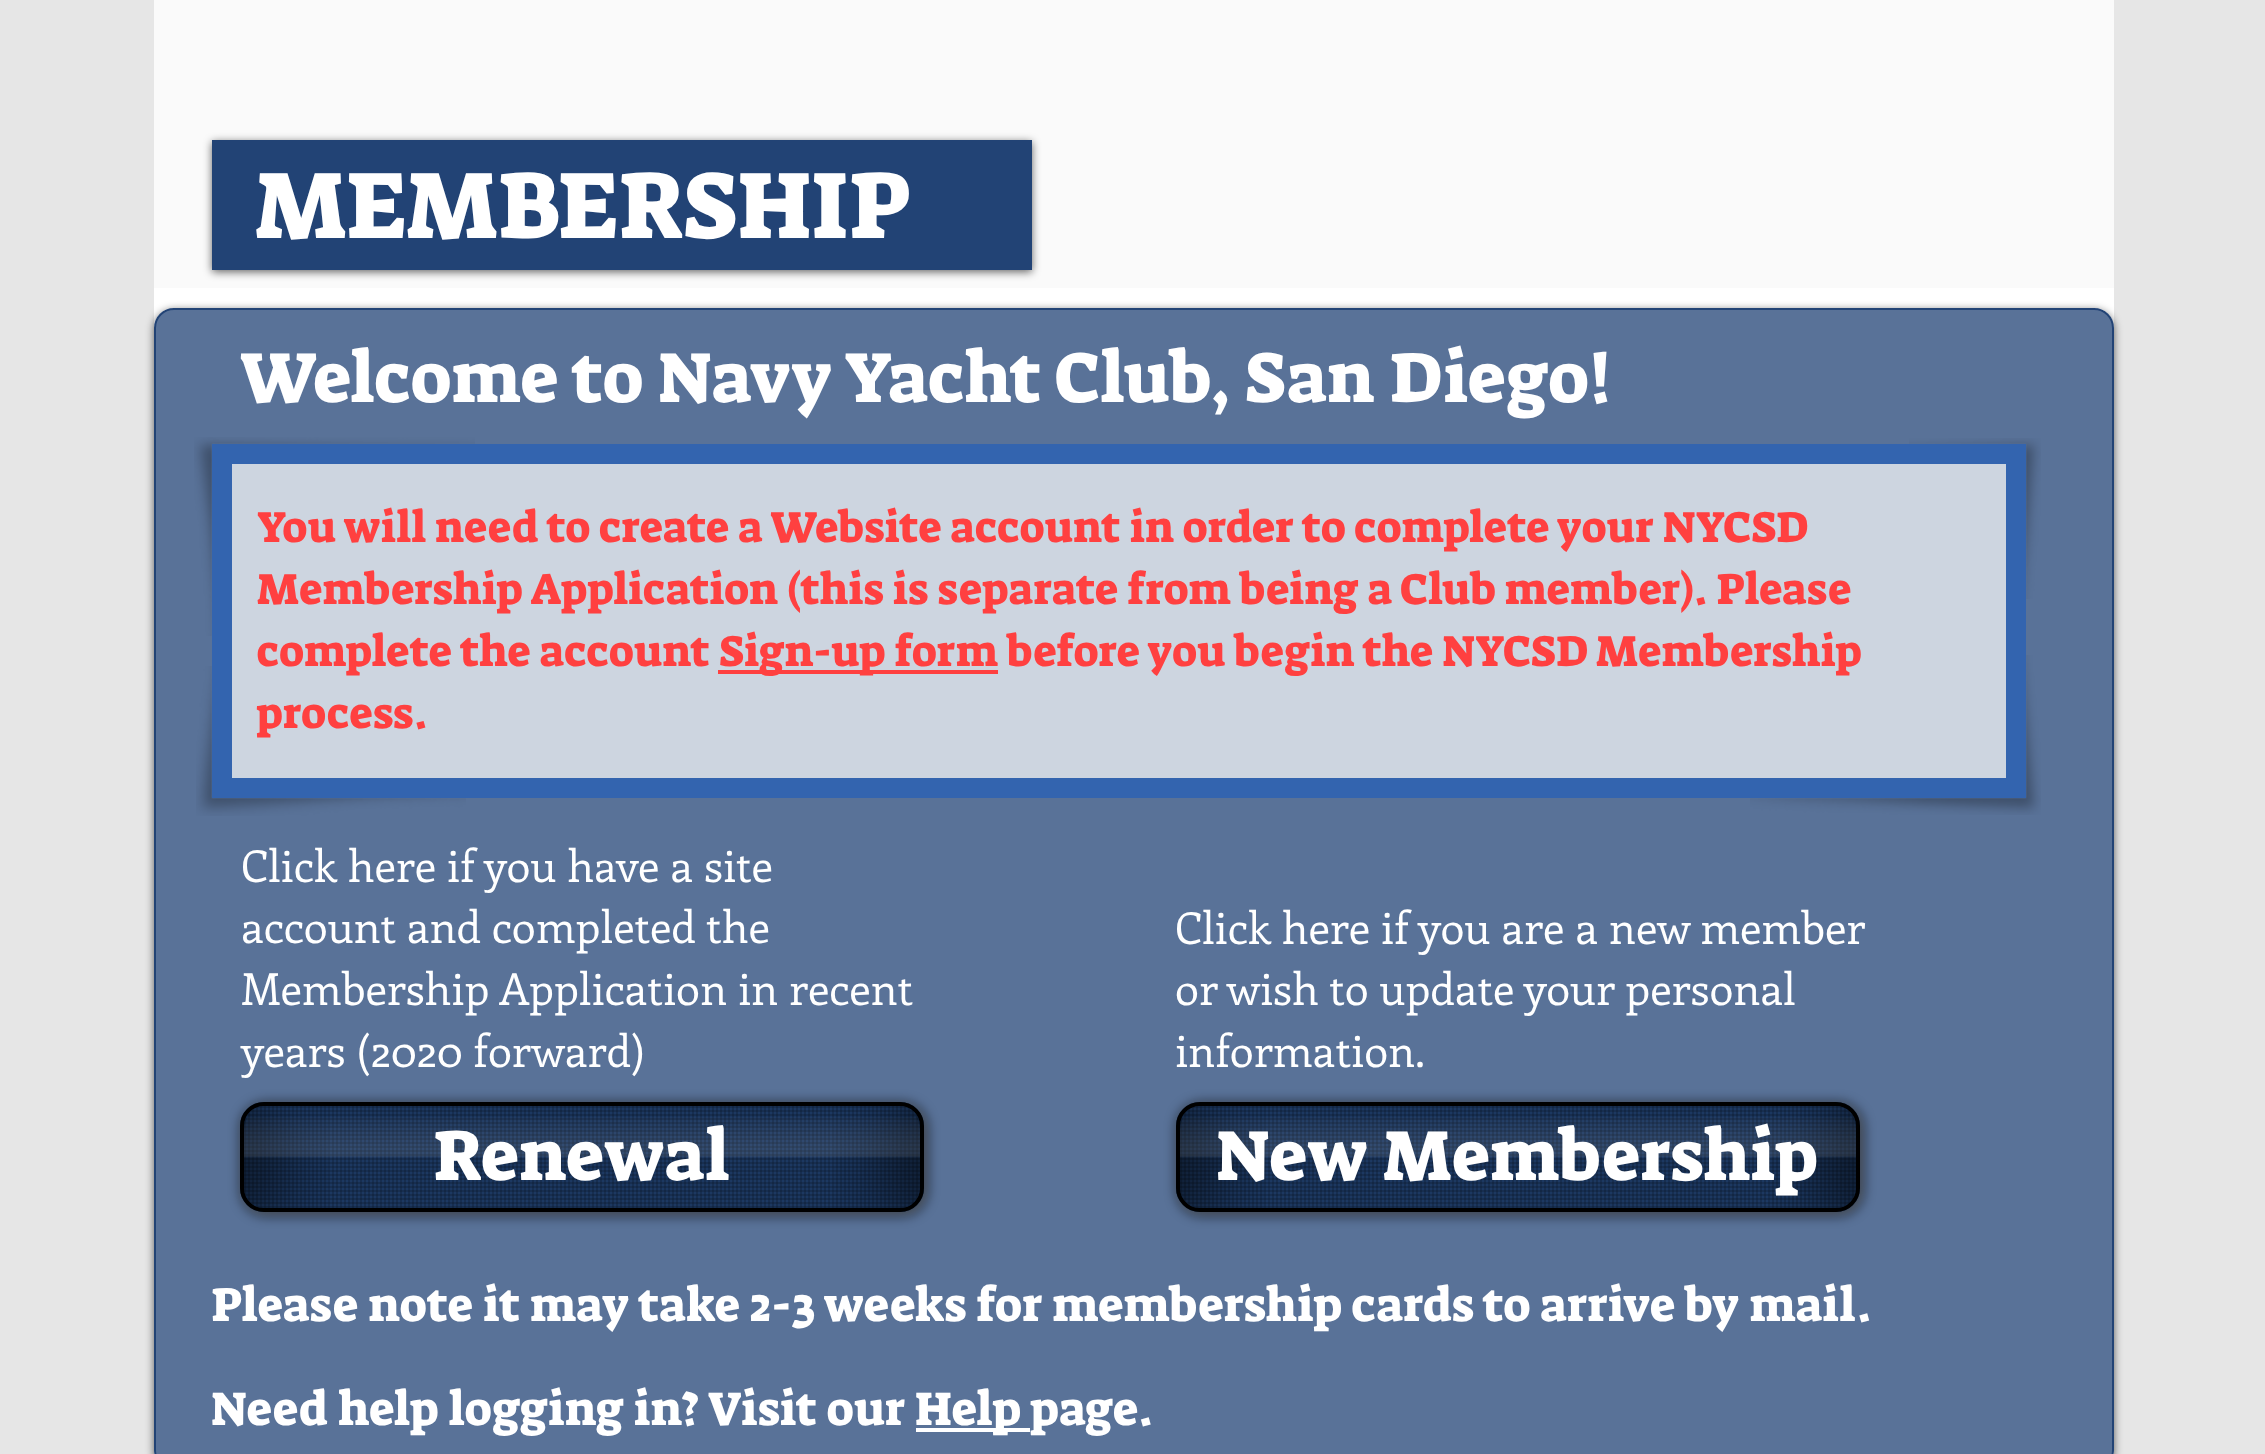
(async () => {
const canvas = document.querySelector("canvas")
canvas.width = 2265
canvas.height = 1454
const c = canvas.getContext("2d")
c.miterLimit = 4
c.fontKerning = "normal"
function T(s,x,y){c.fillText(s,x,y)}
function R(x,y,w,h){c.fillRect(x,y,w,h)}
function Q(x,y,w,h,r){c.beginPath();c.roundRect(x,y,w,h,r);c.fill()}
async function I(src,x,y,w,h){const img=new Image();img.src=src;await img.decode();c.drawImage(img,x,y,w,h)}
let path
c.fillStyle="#e6e6e6"
R(0,0,2265,1454)
c.fillStyle="#fafafa"
R(154,0,1960,288)
c.fillStyle="#00000099"
c.filter="blur(4px)"
c.beginPath()
c.rect(212,142,820,130)
c.fill()
c.filter="none"
c.fillStyle="#224375"
R(212,140,820,130)
c.font="96px Suez One"
c.fillStyle="#fff"
T("MEMBERSHIP",255,238)
R(154,288,1960,1166)
c.save()
path = new Path2D("M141 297h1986v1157h-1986zm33 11h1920c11 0 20 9 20 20v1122c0 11-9 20-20 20h-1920c-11 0-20-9-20-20v-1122c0-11 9-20 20-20z")
c.clip(path,"evenodd")
c.fillStyle="#00000099"
c.filter="blur(4px)"
c.beginPath()
c.roundRect(154,310,1960,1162,20)
c.fill()
c.filter="none"
c.restore()
c.fillStyle="#224375bf"
c.beginPath()
c.roundRect(155,309,1958,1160,19)
c.fill()
c.strokeStyle="#224375"
c.lineWidth=2
c.stroke()
c.font="72px Suez One"
c.fillStyle="#fff"
T("Welcome to Navy Yacht Club, San Diego!",239,402)
await I("1.png",194,437,281,199)
await I("2.png",1909,438,132,161)
await I("3.png",1750,655,291,160)
await I("4.png",196,666,270,150)
c.fillStyle="#ffffffb3"
c.beginPath()
c.rect(222,454,1794,334)
c.fill()
c.strokeStyle="#3364af"
c.lineWidth=20
c.stroke()
c.font="44px Suez One"
c.fillStyle="#ff4040"
T("You will need to create a Website account in order to complete your NYCSD",257,542)
T("Membership Application (this is separate from being a Club member). Please",257,604)
T("complete the account",257,666)
R(718,670,280,4)
T("Sign-up form before you begin the NYCSD Membership",719,666)
T("process.",257,728)
c.font="44px Enriqueta"
c.fillStyle="#fff"
T("Click here if you have a site",241,882)
T("account and completed the",241,943)
T("Membership Application in recent",241,1005)
T("years (2020 forward)",241,1067)
T("Click here if you are a new member",1175,944)
T("or wish to update your personal",1175,1005)
T("information.",1175,1067)
c.fillStyle="#ffffff4d"
c.filter="blur(3px)"
c.beginPath()
c.roundRect(242,1104,684,110,24)
c.fill()
c.filter="none"
c.fillStyle="#00000099"
c.filter="blur(6px)"
c.beginPath()
c.roundRect(240,1102,688,114,26)
c.fill()
c.filter="none"
c.fillStyle="#224375"
Q(240,1102,684,110,24)
await I("5.png",240,1102,684,110)
c.beginPath()
c.roundRect(242,1104,680,106,22)
c.strokeStyle="#000"
c.lineWidth=4
c.stroke()
await I("6.png",244,1106,84,102)
await I("7.png",834,1106,86,102)
c.font="72px Suez One"
c.fillStyle="#fff"
T("Renewal",433,1180)
await I("8.png",244,1117,676,41)
c.fillStyle="#ffffff4d"
c.filter="blur(3px)"
c.beginPath()
c.roundRect(1178,1104,684,110,24)
c.fill()
c.filter="none"
c.fillStyle="#00000099"
c.filter="blur(6px)"
c.beginPath()
c.roundRect(1176,1102,688,114,26)
c.fill()
c.filter="none"
c.fillStyle="#224375"
Q(1176,1102,684,110,24)
await I("9.png",1176,1102,684,110)
c.beginPath()
c.roundRect(1178,1104,680,106,22)
c.stroke()
await I("10.png",1180,1106,84,102)
await I("7.png",1770,1106,86,102)
c.fillStyle="#fff"
T("New Membership",1216,1180)
await I("11.png",1180,1117,676,41)
c.font="48px Suez One"
T("Please note it may take 2-3 weeks for membership cards to arrive by mail.",211,1321)
T("Need help logging in? Visit our",211,1425)
R(916,1428,114,4)
T("Help page.",915,1425)
})()
